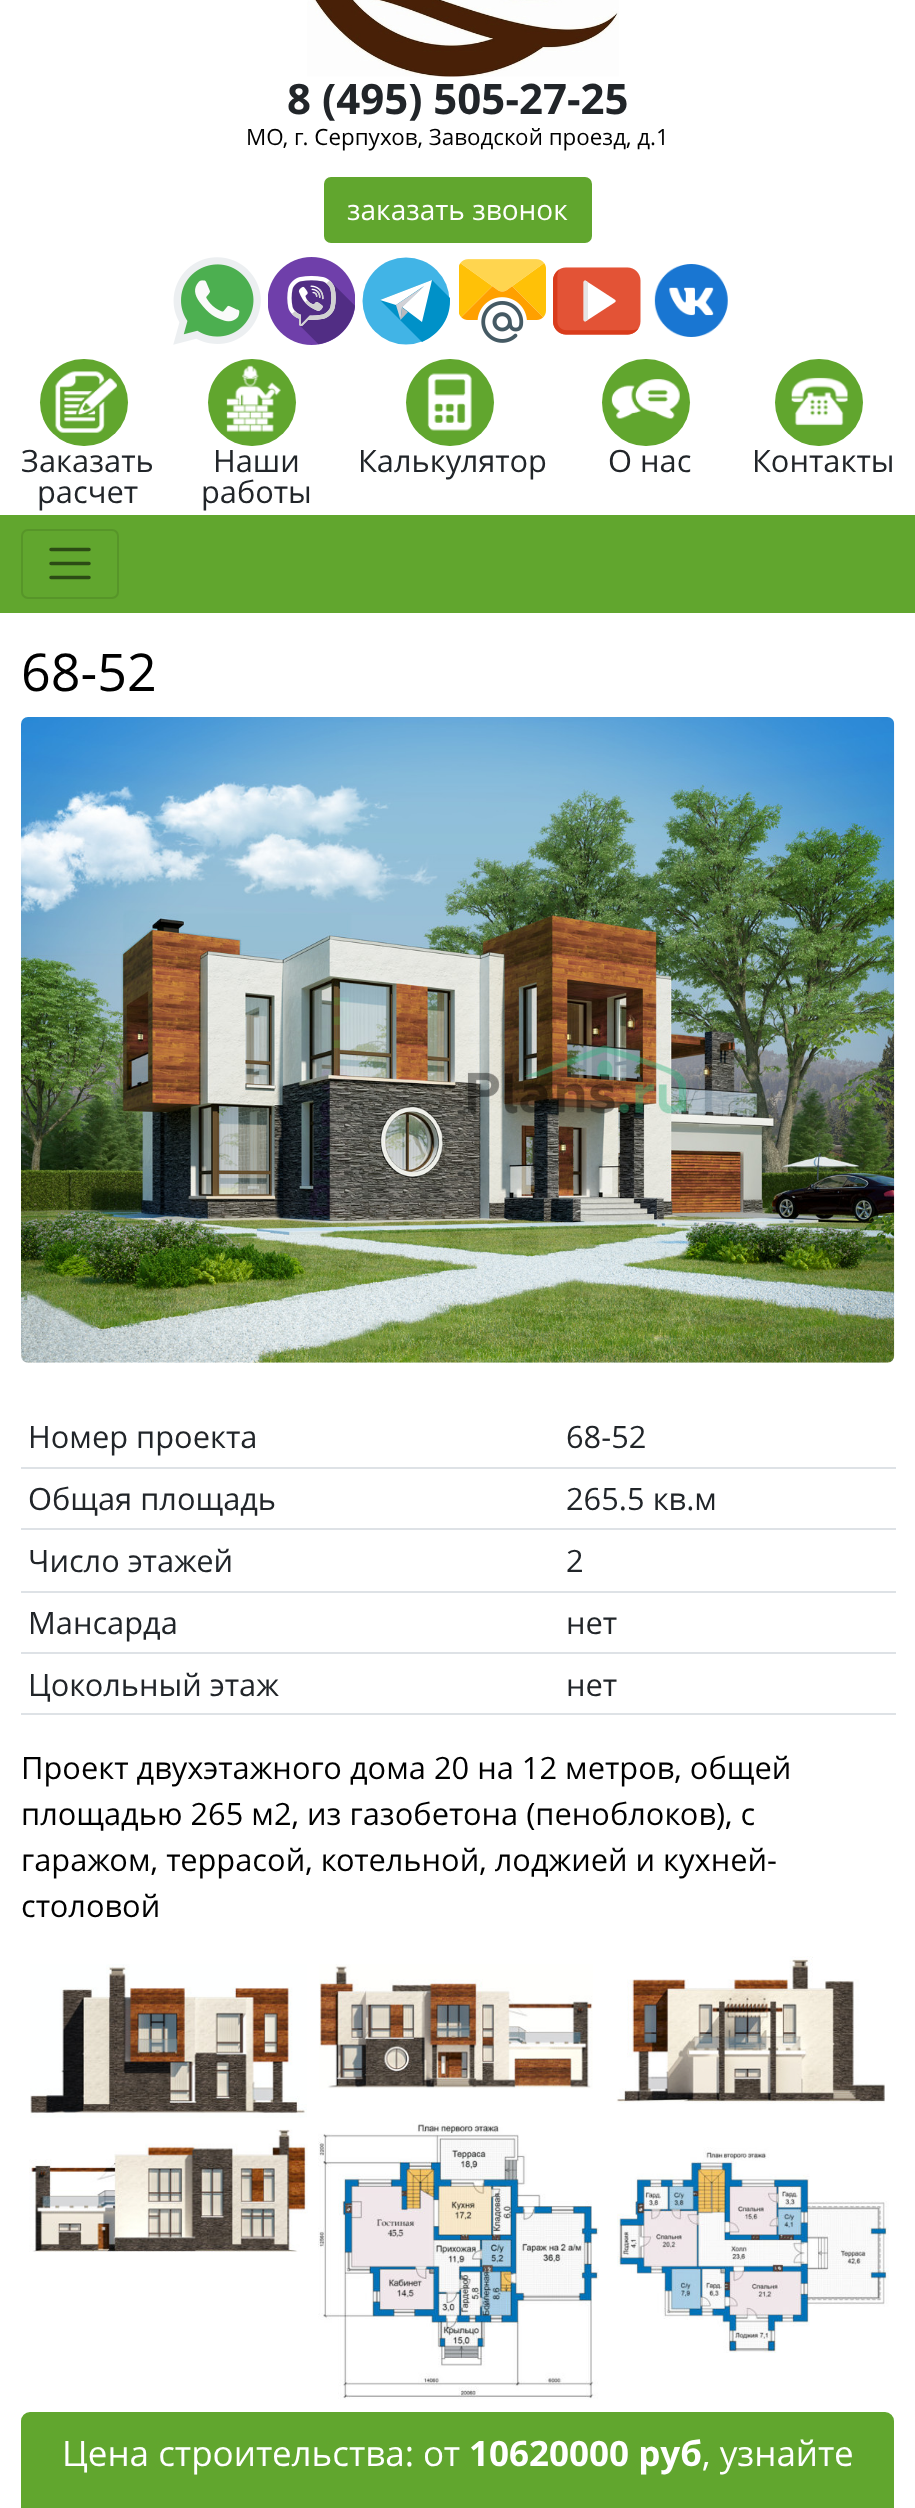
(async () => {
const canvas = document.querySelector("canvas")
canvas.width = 915
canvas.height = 2508
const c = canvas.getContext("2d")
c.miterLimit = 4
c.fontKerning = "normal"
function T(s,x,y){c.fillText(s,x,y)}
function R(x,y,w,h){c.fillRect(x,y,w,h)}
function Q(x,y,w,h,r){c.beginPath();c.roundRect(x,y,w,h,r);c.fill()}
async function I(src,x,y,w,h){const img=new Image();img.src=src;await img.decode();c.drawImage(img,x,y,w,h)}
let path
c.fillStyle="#fff"
R(0,0,915,2508)
await I("1.png",307,0,312,77)
c.font="bold 42px Open Sans"
c.fillStyle="#212529"
T("8 (495) 505-27-25",287,114)
c.font="22.4px Open Sans"
c.fillStyle="#000"
T("МО, г. Серпухов, Заводской проезд, д.1",246,145)
c.fillStyle="#61a62e"
c.beginPath()
c.roundRect(325,178,266,64,6)
c.fill()
c.strokeStyle="#61a62e"
c.lineWidth=2
c.stroke()
c.font="28px Open Sans"
c.fillStyle="#fff"
T("заказать звонок",347,220)
await I("2.png",173,257,88,88)
await I("3.png",268,257,87,88)
c.fillStyle="#41b4e6"
c.beginPath()
c.arc(406,301,43.5,0,7)
c.fill()
c.fillStyle="#0091c8"
path = new Path2D("M450 301v-3l-18-18l-52 20l42 42c16-7 28-22 28-41z")
c.fill(path)
c.fillStyle="#fff"
path = new Path2D("M402 307l20 15l10-42l-52 20l16 5l28-19z")
c.fill(path)
c.fillStyle="#d2d2d7"
path = new Path2D("M396 305l4.5 15l1.5-12.5l22.5-21.5z")
c.fill(path)
c.fillStyle="#b9b9be"
path = new Path2D("M408 312l-7.5 8l1.5-12.5z")
c.fill(path)
await I("4.png",459,259,87,84)
await I("5.png",553,267,88,68)
await I("6.png",654,264,74,73)
c.fillStyle="#61a62e"
Q(40,359,88,87,43.5)
await I("7.png",55,371,62,62)
c.font="30.8px Open Sans"
c.fillStyle="#212529"
T("Заказать",21,472)
T("расчет",37,503)
c.fillStyle="#61a62e"
Q(208,359,88,87,43.5)
await I("8.png",226,365,55,67)
c.fillStyle="#212529"
T("Наши",213,472)
T("работы",201,503)
c.fillStyle="#61a62e"
Q(406,359,88,87,43.5)
await I("9.png",427,373,45,58)
c.fillStyle="#212529"
T("Калькулятор",358,472)
c.fillStyle="#61a62e"
Q(602,359,88,87,43.5)
await I("10.png",611,379,69,40)
c.fillStyle="#212529"
T("О нас",608,472)
c.fillStyle="#61a62e"
Q(775,359,88,87,43.5)
await I("11.png",791,377,57,49)
c.fillStyle="#212529"
T("Контакты",752,472)
c.fillStyle="#61a62e"
R(0,515,915,98)
c.beginPath()
c.roundRect(22,530,96,68,6)
c.strokeStyle="#579529"
c.stroke()
path = new Path2D("M51 549.5h38m-38 14h38m-38 14h38")
c.strokeStyle="#2c4b15"
c.lineWidth=3.5
c.lineCap="round"
c.stroke(path)
c.font="52px Open Sans"
c.fillStyle="#000"
T("68-52",21,691)
await I("12.png",21,717,874,646)
c.font="30.8px Open Sans"
c.fillStyle="#212529"
T("Номер проекта",28,1448)
c.fillStyle="#dee2e6"
R(21,1467,875,2)
c.fillStyle="#212529"
T("68-52",566,1448)
T("Общая площадь",28,1510)
c.fillStyle="#dee2e6"
R(21,1528,875,2)
c.fillStyle="#212529"
T("265.5 кв.м",566,1510)
T("Число этажей",28,1572)
c.fillStyle="#dee2e6"
R(21,1591,875,2)
c.fillStyle="#212529"
T("2",566,1572)
T("Мансарда",28,1634)
c.fillStyle="#dee2e6"
R(21,1652,875,2)
c.fillStyle="#212529"
T("нет",566,1634)
T("Цокольный этаж",28,1696)
c.fillStyle="#dee2e6"
R(21,1713,875,2)
c.fillStyle="#212529"
T("нет",566,1696)
c.fillStyle="#000"
T("Проект двухэтажного дома 20 на 12 метров, общей",21,1779)
T("площадью 265 м2, из газобетона (пеноблоков), c",21,1825)
T("гаражом, террасой, котельной, лоджией и кухней-",21,1871)
T("столовой",21,1917)
await I("13.png",30,1964,277,154)
await I("14.png",319,1964,274,125)
await I("15.png",616,1956,269,148)
await I("16.png",29,2129,279,123)
await I("17.png",318,2120,281,280)
await I("18.png",617,2147,272,206)
c.fillStyle="#61a62e"
c.beginPath()
c.roundRect(22,2413,871,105,8)
c.fill()
c.strokeStyle="#61a62e"
c.lineWidth=2
c.stroke()
c.font="35px Open Sans"
c.fillStyle="#fff"
T("Цена строительства: от",62,2466)
c.font="bold 35px Open Sans"
T("10620000 руб",469,2466)
c.font="35px Open Sans"
T(", узнайте",702,2466)
})()
